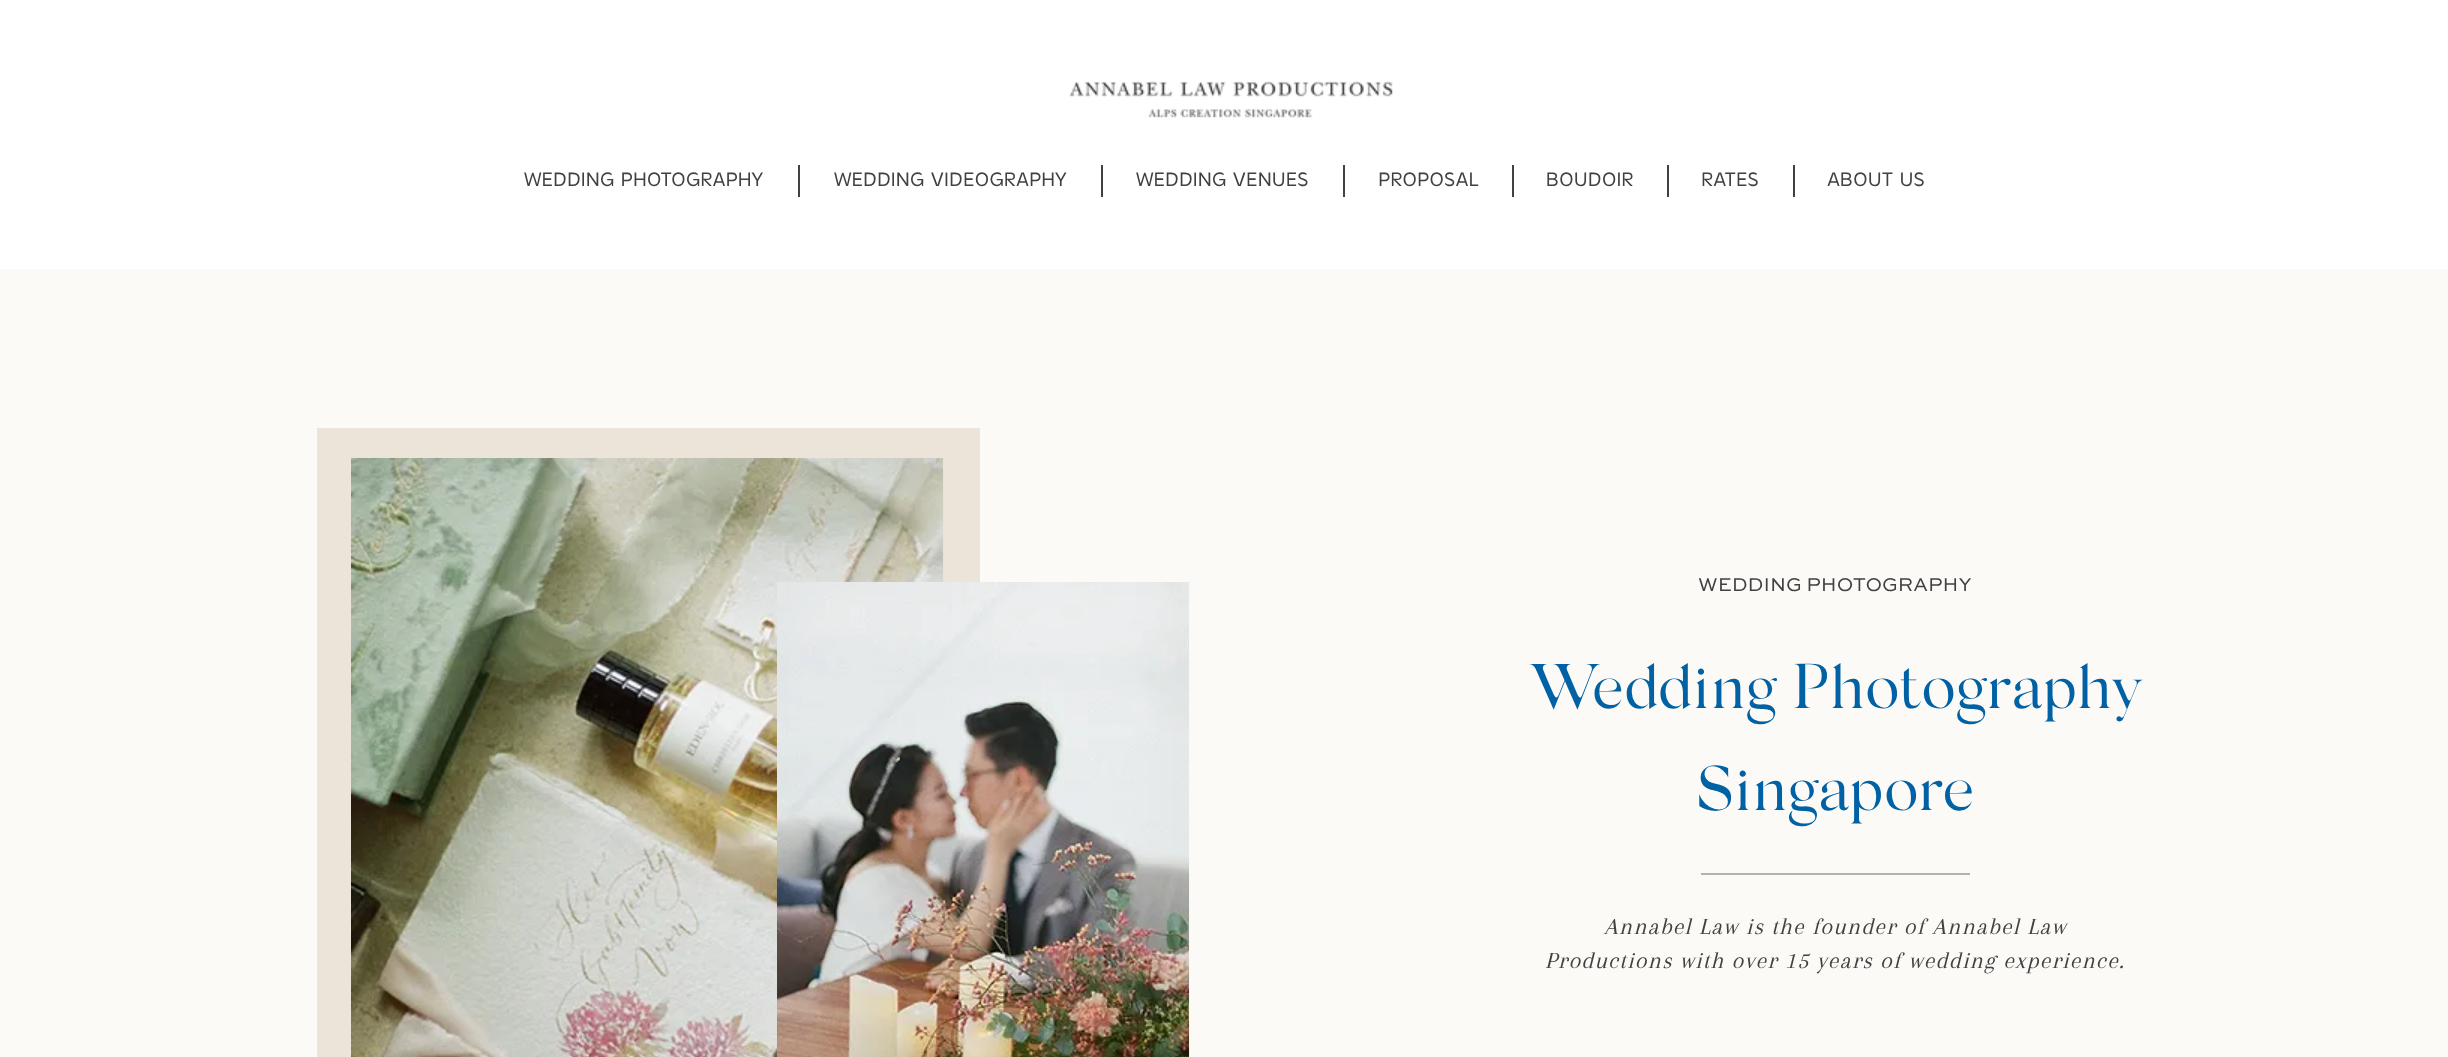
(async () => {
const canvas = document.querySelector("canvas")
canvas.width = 2448
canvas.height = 1057
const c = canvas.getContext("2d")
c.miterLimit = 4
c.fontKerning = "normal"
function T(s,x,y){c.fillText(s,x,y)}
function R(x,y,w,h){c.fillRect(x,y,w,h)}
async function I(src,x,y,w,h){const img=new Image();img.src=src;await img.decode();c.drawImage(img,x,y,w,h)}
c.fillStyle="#fcfaf7"
R(0,0,2448,1057)
c.fillStyle="#fff"
R(0,0,2448,269)
await I("1.png",1069,81,324,37)
c.font="21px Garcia"
c.fillStyle="#414141"
T("WEDDING PHOTOGRAPHY",524,186)
R(798,165,2,32)
T("WEDDING VIDEOGRAPHY",834,186)
R(1101,165,2,32)
T("WEDDING VENUES",1136,186)
R(1343,165,2,32)
T("PROPOSAL",1378,186)
R(1512,165,2,32)
T("BOUDOIR",1546,186)
R(1667,165,2,32)
T("RATES",1701,186)
R(1793,165,2,32)
T("ABOUT US",1827,186)
c.fillStyle="#ece4d8"
R(317,428,663,629)
await I("2.png",351,458,593,599)
await I("3.png",777,582,413,475)
c.font="19.5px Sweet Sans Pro"
c.fillStyle="#414141"
T("WEDDING PHOTOGRAPHY",1698,591)
c.font="63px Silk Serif"
c.fillStyle="#0062a4"
T("Wedding Photography",1530,708)
T("Singapore",1696,810)
c.fillStyle="#b3b2b0"
R(1701,873,269,2)
c.letterSpacing="1.2px"
c.font="italic 24px Arapey"
c.fillStyle="#414141"
T("Annabel Law is the founder of Annabel Law",1604,934)
T("Productions with over 15 years of wedding experience.",1545,968)
})()
